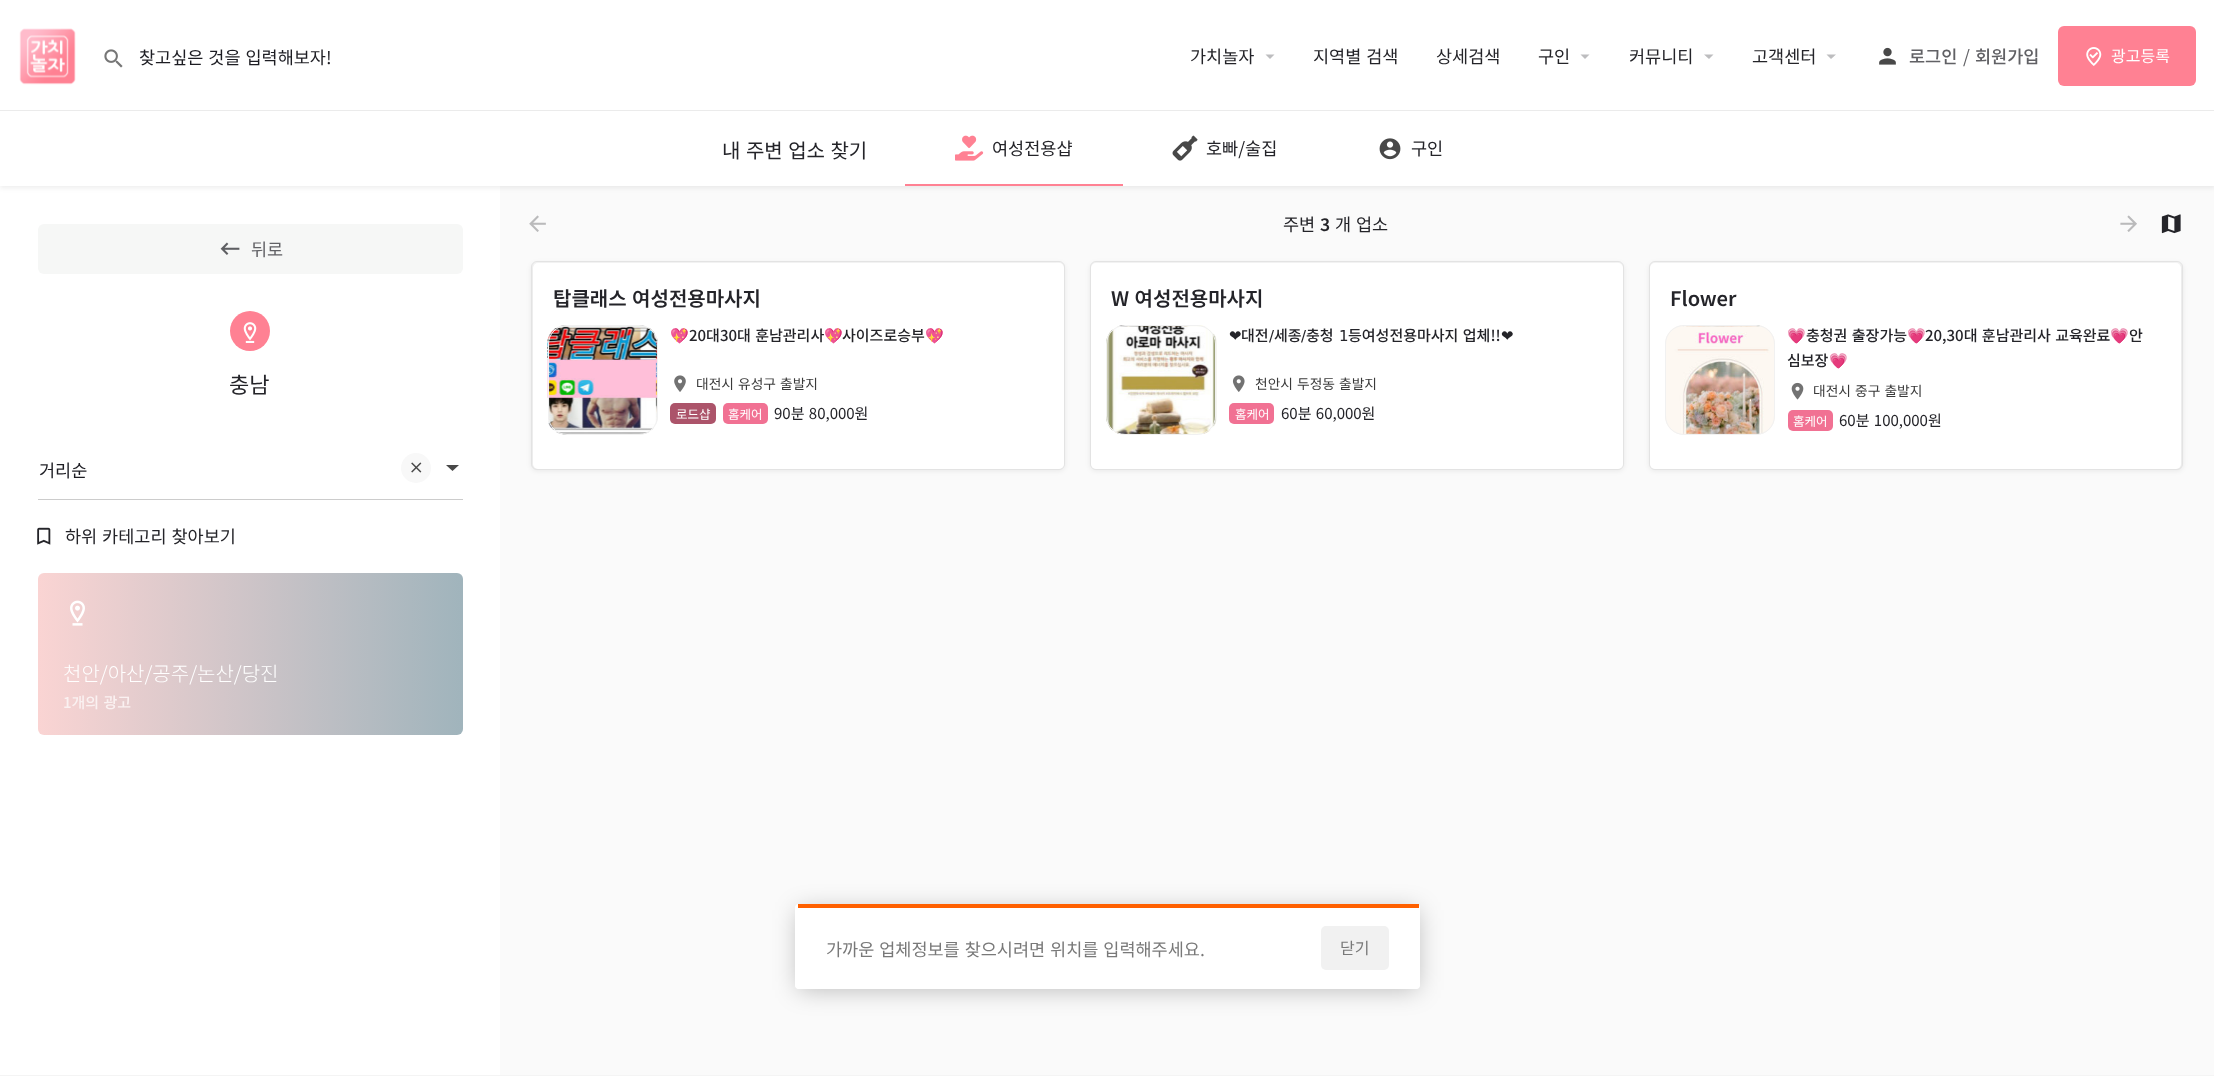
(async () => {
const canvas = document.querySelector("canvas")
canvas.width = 2214
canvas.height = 1076
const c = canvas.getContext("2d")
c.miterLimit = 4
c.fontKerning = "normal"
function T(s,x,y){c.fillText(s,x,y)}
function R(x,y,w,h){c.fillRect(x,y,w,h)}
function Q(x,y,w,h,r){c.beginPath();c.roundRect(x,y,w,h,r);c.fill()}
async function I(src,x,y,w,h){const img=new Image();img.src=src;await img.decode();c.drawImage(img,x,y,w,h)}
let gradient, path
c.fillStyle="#f4f4f4"
R(0,0,2214,1076)
c.fillStyle="#fff"
R(0,186,500,889)
c.fillStyle="#fafafa"
R(500,186,1714,889)
c.fillStyle="#00000012"
c.filter="blur(2.5px)"
c.beginPath()
c.rect(0,113,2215,75)
c.fill()
c.filter="none"
c.fillStyle="#fff"
R(0,0,2214,110)
c.fillStyle="#ebebeb"
R(0,110,2214,1)
await I("1.png",19,28,57,57)
await I("2.png",104,49,19,19)
c.wordSpacing="1px"
c.font="17.5px Noto Sans KR"
c.fillStyle="#1d1d23"
T("찾고싶은 것을 입력해보자!",139,64)
c.wordSpacing="0px"
c.fillStyle="#242429"
T("가치놀자",1190,63)
c.fillStyle="#bdbdbf"
path = new Path2D("M1265.5 54.5h9l-4.5 4.5z")
c.fill(path)
c.wordSpacing="1px"
c.fillStyle="#242429"
T("지역별 검색",1313,63)
c.wordSpacing="0px"
T("상세검색",1436,63)
T("구인",1538,63)
c.fillStyle="#bdbdbf"
path = new Path2D("M1580.5 54.5h9l-4.5 4.5z")
c.fill(path)
c.fillStyle="#242429"
T("커뮤니티",1629,63)
c.fillStyle="#bdbdbf"
path = new Path2D("M1704 54.5h9.5l-4.5 4.5z")
c.fill(path)
c.fillStyle="#242429"
T("고객센터",1752,63)
c.fillStyle="#bdbdbf"
path = new Path2D("M1826.5 54.5h9.5l-5 4.5z")
c.fill(path)
await I("3.png",1879,47,17,18)
c.font="500 17.5px Noto Sans KR"
c.fillStyle="#616165"
T("로그인",1909,63)
c.font="17.5px Noto Sans KR"
T("/",1963,63)
c.font="500 17.5px Noto Sans KR"
T("회원가입",1975,63)
c.fillStyle="#ff8193"
Q(2058,26,138,60,6)
await I("4.png",2086,47,16,19)
c.font="16px Noto Sans KR"
c.fillStyle="#fff"
T("광고등록",2111,62)
R(0,111,2214,75)
c.wordSpacing="1px"
c.font="20px Noto Sans KR"
c.fillStyle="#242429"
T("내 주변 업소 찾기",722,158)
await I("5.png",955,135,29,26)
c.wordSpacing="0px"
c.font="17.5px Noto Sans KR"
T("여성전용샵",992,155)
c.fillStyle="#ff8193"
R(905,184,218,2)
await I("6.png",1172,135,26,26)
c.fillStyle="#242429"
T("호빠/술집",1206,155)
await I("7.png",1379,138,22,22)
T("구인",1411,155)
c.fillStyle="#f6f7f6"
Q(38,224,425,50,6)
await I("8.png",220,242,20,13)
c.fillStyle="#616165"
T("뒤로",251,256)
c.fillStyle="#ff8193"
c.beginPath()
c.arc(250,331,20,0,7)
c.fill()
await I("9.png",243,322,14,21)
c.font="22px Noto Sans KR"
c.fillStyle="#242429"
T("충남",229,393)
c.fillStyle="#ccc"
R(38,499,425,1)
c.font="17.5px Noto Sans KR"
c.fillStyle="#1d1d23"
T("거리순",39,477)
c.fillStyle="#f8f8f8"
c.beginPath()
c.arc(416,468,15,0,7)
c.fill()
await I("10.png",411,462,11,11)
c.fillStyle="#484848"
path = new Path2D("M446 465h13l-6.5 6z")
c.fill(path)
await I("11.png",37,527,14,18)
c.wordSpacing="1px"
c.fillStyle="#242429"
T("하위 카테고리 찾아보기",65,543)
gradient = c.createLinearGradient(463,654,38,654)
gradient.addColorStop(0,"#a0b4bc")
gradient.addColorStop(1,"#fad4d3")
c.fillStyle = gradient
Q(38,573,425,162,6)
await I("12.png",70,600,15,26)
c.wordSpacing="0px"
c.font="300 20px Noto Sans KR"
c.fillStyle="#fff"
T("천안/아산/공주/논산/당진",63,681)
c.wordSpacing="1px"
c.font="500 15px Noto Sans KR"
c.fillStyle="#faf1f1"
T("1개의 광고",63,708)
await I("13.png",529,215,17,17)
c.wordSpacing="0px"
c.font="17.5px Noto Sans KR"
c.fillStyle="#242429"
T("주변",1283,231)
c.font="600 17.5px Noto Sans KR"
T("3",1320,231)
c.wordSpacing="1px"
c.font="17.5px Noto Sans KR"
T("개 업소",1335,231)
await I("14.png",2120,215,17,17)
await I("15.png",2161,214,20,20)
c.fillStyle="#00000012"
c.filter="blur(2.5px)"
c.beginPath()
c.roundRect(531,263,534,208,6)
c.fill()
c.filter="none"
c.beginPath()
c.roundRect(531.5,261.5,533,208,5.5)
c.strokeStyle="#e3e3e3"
c.stroke()
c.fillStyle="#fff"
Q(533,263,531,206,5)
c.font="600 20px Noto Sans KR"
c.fillStyle="#242429"
T("탑클래스 여성전용마사지",553,306)
await I("16.png",547,325,111,110)
c.beginPath()
c.roundRect(548.5,325.5,109,109,18.5)
c.strokeStyle="#f1f1f1"
c.stroke()
c.wordSpacing="0px"
c.font="15px Noto Color Emoji"
T("💖",670,341)
c.wordSpacing="1px"
c.font="500 15px Noto Sans KR"
T("20대30대 훈남관리사",689,341)
c.wordSpacing="0px"
c.font="15px Noto Color Emoji"
T("💖",824,341)
c.font="500 15px Noto Sans KR"
T("사이즈로승부",842,341)
c.font="15px Noto Color Emoji"
T("💖",925,341)
await I("17.png",674,375,12,17)
c.wordSpacing="1px"
c.font="13.75px Noto Sans KR"
c.fillStyle="#3a3a3a"
T("대전시 유성구 출발지",696,389)
c.fillStyle="#ac546a"
Q(670,403,46,21,5)
c.wordSpacing="0px"
c.font="12.5px Noto Sans KR"
c.fillStyle="#fff"
T("로드샵",676,419)
c.fillStyle="#f17193"
Q(723,403,45,21,5)
c.fillStyle="#fff"
T("홈케어",728,419)
c.wordSpacing="1px"
c.font="15px Noto Sans KR"
c.fillStyle="#242429"
T("90분 80,000원",774,419)
c.fillStyle="#00000012"
c.filter="blur(2.5px)"
c.beginPath()
c.roundRect(1090,263,534,208,6)
c.fill()
c.filter="none"
c.beginPath()
c.roundRect(1090.5,261.5,533,208,5.5)
c.strokeStyle="#e3e3e3"
c.stroke()
c.fillStyle="#fff"
Q(1091,263,532,206,5)
c.font="600 20px Noto Sans KR"
c.fillStyle="#242429"
T("W 여성전용마사지",1111,306)
await I("18.png",1106,325,111,110)
c.beginPath()
c.roundRect(1106.5,325.5,109,109,18.5)
c.strokeStyle="#f1f1f1"
c.stroke()
c.wordSpacing="0px"
c.font="15px DejaVu Sans"
T("❤",1229,341)
c.font="500 15px Noto Sans KR"
T("대전",1241,341)
c.font="15px DejaVu Sans"
T("/",1269,341)
c.font="500 15px Noto Sans KR"
T("세종",1274,341)
c.font="15px DejaVu Sans"
T("/",1301,341)
c.font="500 15px Noto Sans KR"
T("충청",1306,341)
c.font="15px DejaVu Sans"
T("1",1339,341)
c.wordSpacing="1px"
c.font="500 15px Noto Sans KR"
T("등여성전용마사지 업체!!",1348,341)
c.wordSpacing="0px"
c.font="15px DejaVu Sans"
T("❤",1501,341)
await I("19.png",1232,375,13,17)
c.wordSpacing="1px"
c.font="13.75px Noto Sans KR"
c.fillStyle="#3a3a3a"
T("천안시 두정동 출발지",1255,389)
c.fillStyle="#f17193"
Q(1229,403,45,21,5)
c.wordSpacing="0px"
c.font="12.5px Noto Sans KR"
c.fillStyle="#fff"
T("홈케어",1235,419)
c.wordSpacing="1px"
c.font="15px Noto Sans KR"
c.fillStyle="#242429"
T("60분 60,000원",1281,419)
c.fillStyle="#00000012"
c.filter="blur(2.5px)"
c.beginPath()
c.roundRect(1649,263,534,208,6)
c.fill()
c.filter="none"
c.beginPath()
c.roundRect(1649.5,261.5,533,208,5.5)
c.strokeStyle="#e3e3e3"
c.stroke()
c.fillStyle="#fff"
Q(1650,263,531,206,5)
c.wordSpacing="0px"
c.font="600 20px Noto Sans KR"
c.fillStyle="#242429"
T("Flower",1670,306)
await I("20.png",1665,325,110,110)
c.beginPath()
c.roundRect(1665.5,325.5,109,109,18.5)
c.strokeStyle="#f1f1f1"
c.stroke()
c.font="15px Noto Color Emoji"
T("💗",1787,341)
c.wordSpacing="1px"
c.font="500 15px Noto Sans KR"
T("충청권 출장가능",1806,341)
c.wordSpacing="0px"
c.font="15px Noto Color Emoji"
T("💗",1907,341)
c.wordSpacing="1px"
c.font="500 15px Noto Sans KR"
T("20,30대 훈남관리사 교육완료",1925,341)
c.wordSpacing="0px"
c.font="15px Noto Color Emoji"
T("💗",2110,341)
c.font="500 15px Noto Sans KR"
T("안",2129,341)
T("심보장",1787,366)
c.font="15px Noto Color Emoji"
T("💗",1829,366)
await I("21.png",1791,382,13,18)
c.wordSpacing="1px"
c.font="13.75px Noto Sans KR"
c.fillStyle="#3a3a3a"
T("대전시 중구 출발지",1813,396)
c.fillStyle="#f17193"
Q(1788,410,45,21,5)
c.wordSpacing="0px"
c.font="12.5px Noto Sans KR"
c.fillStyle="#fff"
T("홈케어",1793,426)
c.wordSpacing="1px"
c.font="15px Noto Sans KR"
c.fillStyle="#242429"
T("60분 100,000원",1839,426)
c.save()
path = new Path2D("M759 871h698v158h-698zm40 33h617c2 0 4 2 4 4v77c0 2-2 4-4 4h-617c-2 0-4-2-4-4v-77c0-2 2-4 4-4z")
c.clip(path,"evenodd")
c.fillStyle="#00000040"
c.filter="blur(12.5px)"
c.beginPath()
c.roundRect(798,910,620,80,1)
c.fill()
c.filter="none"
c.restore()
c.fillStyle="#fffffff7"
Q(795,904,625,85,4)
c.fillStyle="#ff6000"
R(798,904,621,4)
c.font="17.5px Noto Sans KR"
c.fillStyle="#797979"
T("가까운 업체정보를 찾으시려면 위치를 입력해주세요.",826,956)
c.fillStyle="#f1f1f1"
Q(1321,926,68,44,5)
c.wordSpacing="0px"
c.font="16px Noto Sans KR"
c.fillStyle="#797979"
T("닫기",1340,954)
})()
